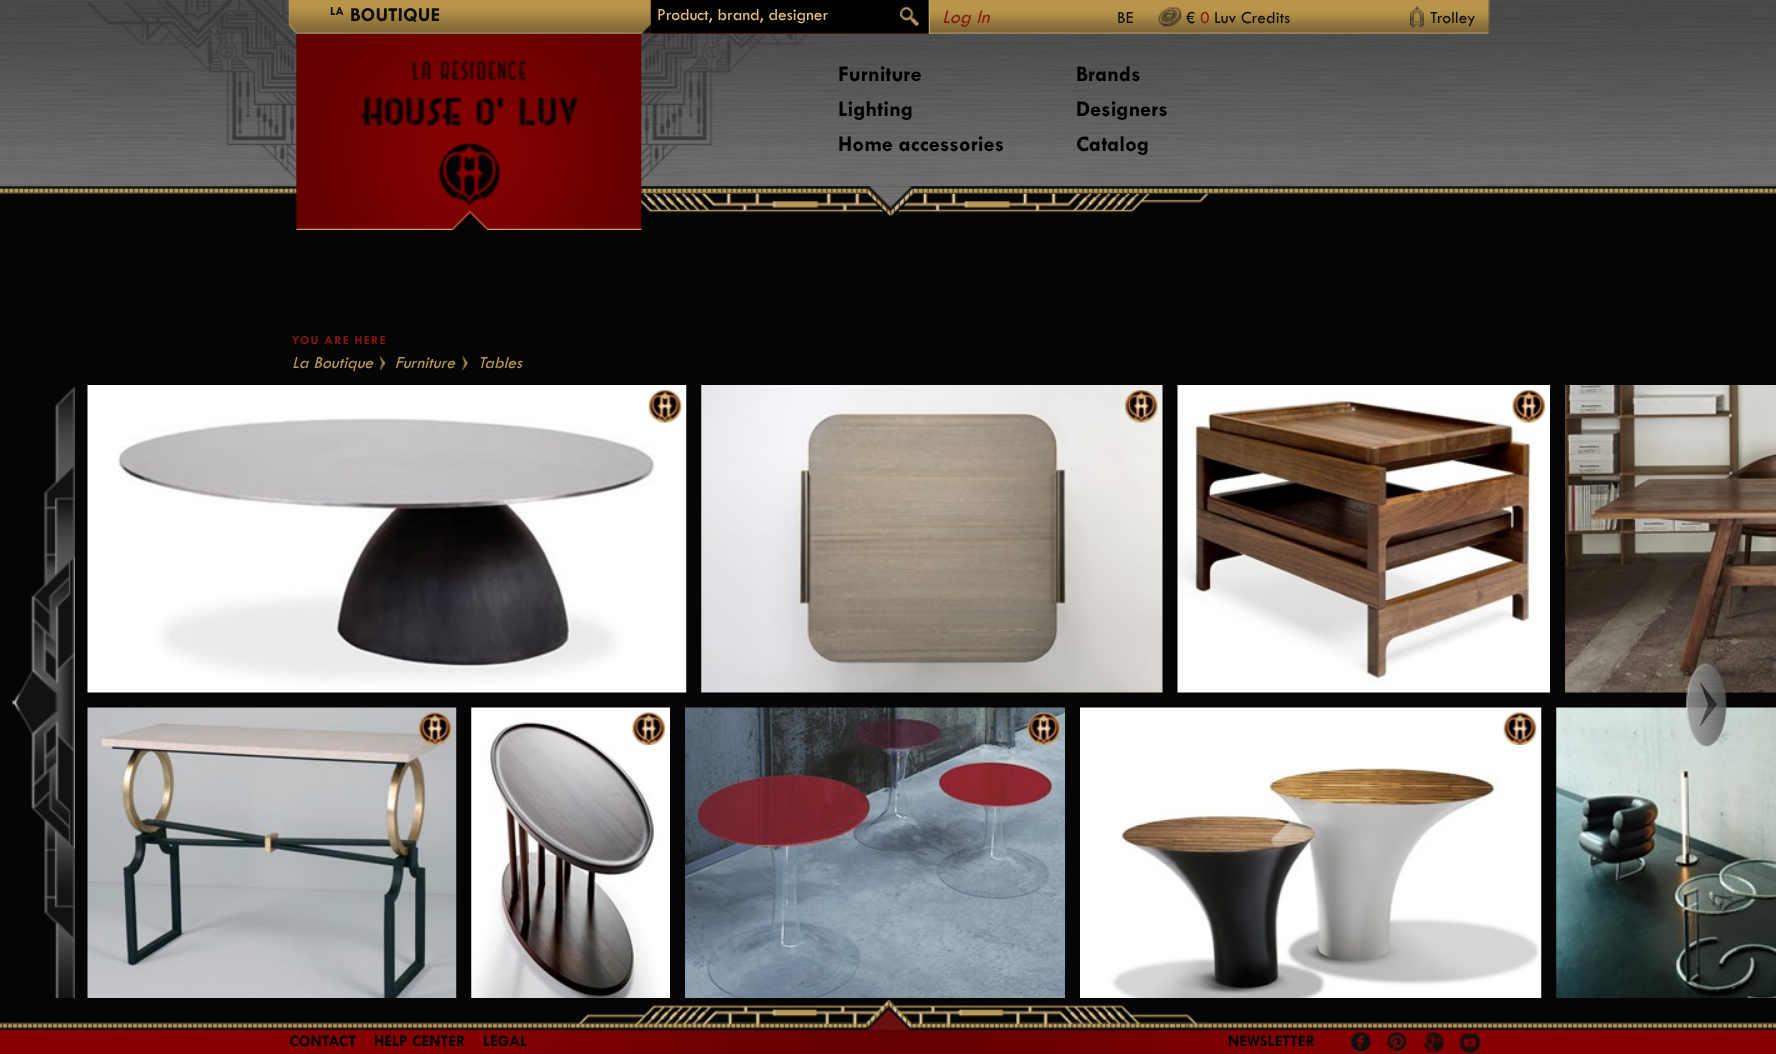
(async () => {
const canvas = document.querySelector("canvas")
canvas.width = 1776
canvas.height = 1054
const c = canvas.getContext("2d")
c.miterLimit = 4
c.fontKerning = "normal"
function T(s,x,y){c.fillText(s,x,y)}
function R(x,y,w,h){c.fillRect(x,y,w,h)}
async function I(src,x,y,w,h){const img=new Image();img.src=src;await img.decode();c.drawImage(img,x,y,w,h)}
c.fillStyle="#050505"
R(0,0,1776,1054)
await I("1.png",0,0,1776,194)
await I("2.png",87,0,1131,217)
await I("8.png",296,33,346,197)
await I("3.png",288,0,363,34)
c.font="bold 12.5px 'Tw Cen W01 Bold'"
c.fillStyle="#0c0c0c"
T("LA",330,15)
c.font="bold 20px 'Tw Cen W01 Bold'"
T("BOUTIQUE",350,21)
c.fillStyle="#000"
R(651,0,278,33)
c.fillStyle="#51100e"
R(651,33,278,1)
c.font="500 17.5px 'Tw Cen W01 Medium'"
c.fillStyle="#e7c177"
T("Product, brand, designer",657,20)
await I("4.png",900,6,20,21)
await I("5.png",928,0,562,34)
c.fillStyle="#bca574"
R(929,0,1,34)
c.font="italic 500 20px 'Tw Cen W01 Medium'"
c.fillStyle="#8c1812"
T("Log In",942,23)
c.font="500 17.5px 'Tw Cen W01 Medium'"
c.fillStyle="#0c0c0c"
T("BE",1117,23)
await I("6.png",1158,7,24,20)
T("€",1186,23)
c.fillStyle="#8c1812"
T("0",1200,23)
c.fillStyle="#0c0c0c"
T("Luv Credits",1214,23)
await I("7.png",1410,6,14,22)
T("Trolley",1430,23)
await I("9.png",361,60,217,146)
c.font="bold 22.5px 'Tw Cen W01 Bold'"
c.fillStyle="#000"
T("Furniture",838,81)
T("Lighting",838,116)
T("Home accessories",838,151)
T("Brands",1076,81)
T("Designers",1076,116)
T("Catalog",1076,151)
c.letterSpacing="1.25px"
c.font="bold 12.5px 'Tw Cen W01 Bold'"
c.fillStyle="#851711"
T("YOU ARE HERE",292,344)
c.letterSpacing="0px"
c.font="italic 500 17.5px 'Tw Cen W01 Medium'"
c.fillStyle="#b7964f"
T("La Boutique",292,368)
await I("10.png",380,356,5,14)
T("Furniture",395,368)
await I("11.png",462,356,6,14)
T("Tables",478,368)
await I("12.png",12,387,63,611)
await I("13.png",87,385,600,308)
await I("14.png",648,390,34,33)
await I("15.png",701,385,462,308)
await I("16.png",1125,390,33,33)
await I("17.png",1177,385,373,308)
await I("18.png",1512,390,33,33)
await I("19.png",1565,385,211,308)
await I("20.png",87,707,370,291)
await I("21.png",418,712,34,33)
await I("22.png",471,707,199,291)
await I("23.png",632,712,33,33)
await I("24.png",685,707,380,291)
await I("25.png",1027,712,33,33)
await I("26.png",1080,707,462,291)
await I("27.png",1503,712,34,33)
await I("28.png",1556,707,220,291)
await I("29.png",1686,663,41,84)
await I("30.png",0,1022,1776,32)
await I("31.png",569,999,639,32)
c.font="bold 16.25px 'Tw Cen W01 Bold'"
c.fillStyle="#000"
T("CONTACT",289,1046)
T("HELP CENTER",374,1046)
T("LEGAL",483,1046)
T("NEWSLETTER",1228,1046)
await I("32.png",1350,1032,22,21)
await I("33.png",1386,1032,21,21)
await I("34.png",1423,1032,21,21)
await I("35.png",1459,1033,22,20)
})()
